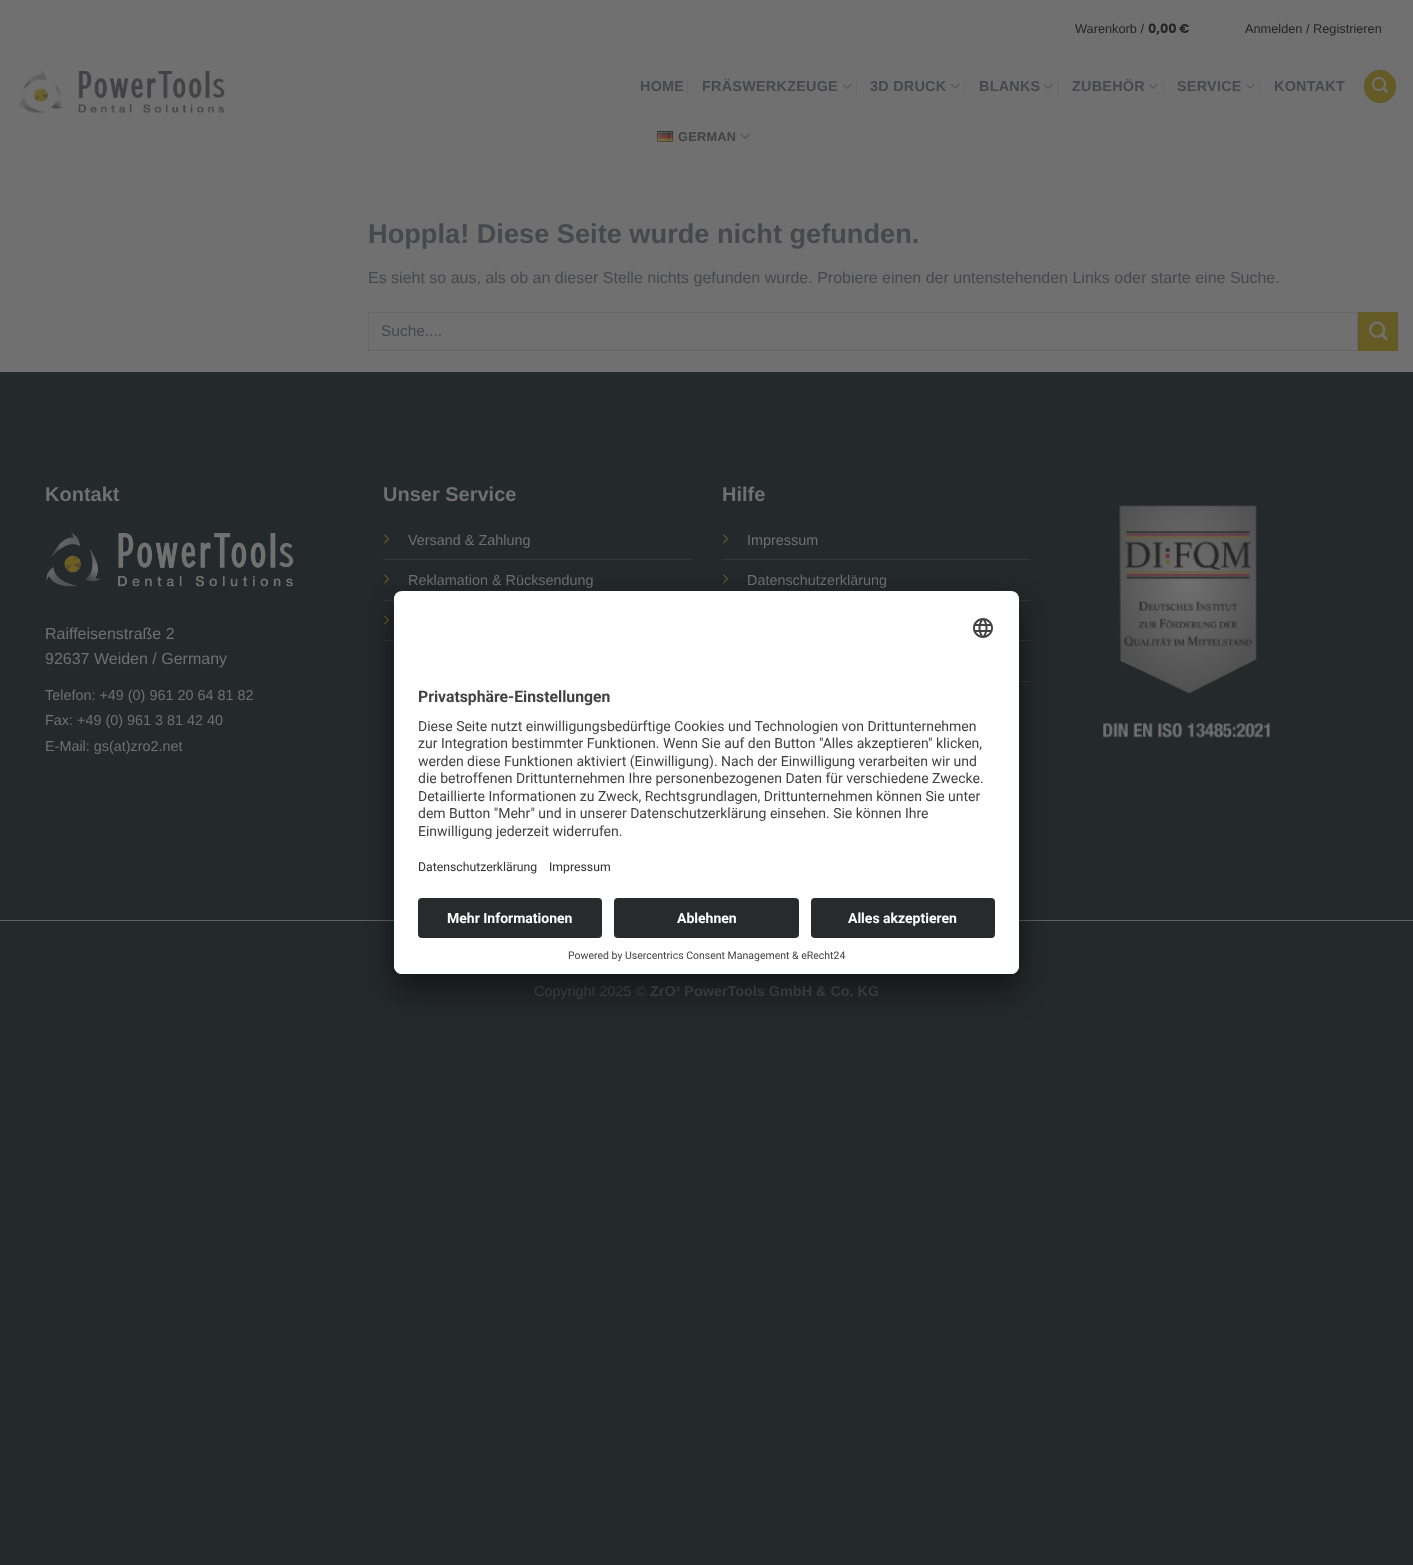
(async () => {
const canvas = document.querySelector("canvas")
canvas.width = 1413
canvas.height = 1565
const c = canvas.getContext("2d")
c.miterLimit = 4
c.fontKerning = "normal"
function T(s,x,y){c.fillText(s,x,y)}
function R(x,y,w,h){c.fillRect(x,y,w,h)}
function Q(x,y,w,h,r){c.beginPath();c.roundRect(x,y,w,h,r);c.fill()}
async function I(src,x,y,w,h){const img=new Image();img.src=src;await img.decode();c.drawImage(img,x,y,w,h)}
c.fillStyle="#24292b"
R(0,0,1413,1565)
c.fillStyle="#707070"
R(0,0,1413,372)
c.font="12.75px Liberation Sans"
c.fillStyle="#242424"
T("Warenkorb /",1075,33)
c.font="bold 12.75px Poppins"
T("0,00 €",1148,33)
c.font="12.75px Liberation Sans"
T("Anmelden / Registrieren",1245,33)
await I("1.png",19,71,206,42)
c.letterSpacing="0.25px"
c.font="bold 14.4px Liberation Sans"
c.fillStyle="#47484b"
T("HOME",640,91)
c.fillStyle="#696969"
R(687,80,1,15)
c.fillStyle="#47484b"
T("FRÄSWERKZEUGE",702,91)
await I("2.png",842,83,10,6)
c.fillStyle="#696969"
R(856,80,1,15)
c.fillStyle="#47484b"
T("3D DRUCK",870,91)
await I("2.png",950,83,10,6)
c.fillStyle="#696969"
R(964,80,1,15)
c.fillStyle="#47484b"
T("BLANKS",979,91)
await I("2.png",1043,83,10,6)
c.fillStyle="#696969"
R(1058,80,1,15)
c.fillStyle="#47484b"
T("ZUBEHÖR",1072,91)
await I("2.png",1148,83,10,6)
c.fillStyle="#696969"
R(1163,80,1,15)
c.fillStyle="#47484b"
T("SERVICE",1177,91)
await I("2.png",1245,83,10,6)
c.fillStyle="#696969"
R(1259,80,1,15)
c.fillStyle="#47484b"
T("KONTAKT",1274,91)
c.fillStyle="#635a25"
Q(1364,70,32,33,16)
c.strokeStyle="#2424240d"
c.strokeRect(1364.5,70.5,31,32)
await I("3.png",1372,77,16,16)
await I("4.png",657,131,16,11)
c.font="bold 12.75px Liberation Sans"
c.fillStyle="#424242"
T("GERMAN",678,141)
await I("5.png",740,133,10,6)
c.letterSpacing="0px"
c.font="bold 27.2px Liberation Sans"
c.fillStyle="#47484b"
T("Hoppla! Diese Seite wurde nicht gefunden.",368,243)
c.font="16px Liberation Sans"
T("Es sieht so aus, als ob an dieser Stelle nichts gefunden wurde. Probiere einen der untenstehenden Links oder starte eine Suche.",368,283)
c.strokeStyle="#666"
c.strokeRect(368.5,312.5,989,38)
c.font="15.5px Liberation Sans"
T("Suche....",381,336)
c.fillStyle="#635a24"
c.beginPath()
c.rect(1358.5,312.5,39,38)
c.fill()
c.strokeStyle="#605724"
c.stroke()
await I("6.png",1369,321,19,20)
c.font="bold 20px Liberation Sans"
c.fillStyle="#707070"
T("Kontakt",45,501)
await I("7.png",46,532,248,55)
c.font="16px Liberation Sans"
T("Raiffeisenstraße 2",45,639)
T("92637 Weiden / Germany",45,664)
c.font="14.4px Liberation Sans"
T("Telefon: +49 (0) 961 20 64 81 82",45,700)
T("Fax: +49 (0) 961 3 81 42 40",45,725)
T("E-Mail: gs(at)zro2.net",45,751)
c.font="bold 20px Liberation Sans"
T("Unser Service",383,501)
c.fillStyle="#333739"
R(383,559,309,1)
await I("8.png",384,534,6,10)
c.font="14.4px Liberation Sans"
c.fillStyle="#707070"
T("Versand & Zahlung",408,545)
c.fillStyle="#333739"
R(383,600,11,1)
await I("8.png",384,574,6,10)
c.fillStyle="#707070"
T("Reklamation & Rücksendung",408,585)
c.fillStyle="#333739"
R(383,640,11,1)
await I("8.png",384,615,6,10)
c.font="bold 20px Liberation Sans"
c.fillStyle="#707070"
T("Hilfe",722,501)
c.fillStyle="#333739"
R(722,559,308,1)
await I("8.png",723,534,6,10)
c.font="14.4px Liberation Sans"
c.fillStyle="#707070"
T("Impressum",747,545)
c.fillStyle="#333739"
R(1019,600,11,1)
await I("8.png",723,574,6,10)
c.fillStyle="#707070"
T("Datenschutzerklärung",747,585)
c.fillStyle="#333739"
R(1019,640,11,1)
R(1019,681,11,1)
await I("9.png",1103,505,168,233)
c.fillStyle="#616161"
R(0,920,1413,1)
c.fillStyle="#47484b"
T("Copyright 2025 ©",534,996)
c.font="bold 14.4px Liberation Sans"
T("ZrO² PowerTools GmbH & Co. KG",650,996)
c.fillStyle="#0000004d"
c.filter="blur(14px)"
c.beginPath()
c.roundRect(394,611,625,383,8)
c.fill()
c.filter="none"
c.fillStyle="#00000038"
c.filter="blur(13px)"
c.beginPath()
c.roundRect(394,596,625,383,8)
c.fill()
c.filter="none"
c.fillStyle="#fff"
Q(394,591,625,383,8)
c.save()
c.beginPath()
c.roundRect(394,591,625,383,8)
c.clip()
c.beginPath()
c.roundRect(394,591,625,299,[8,8,0,0])
c.clip()
R(394,592,625,298)
c.restore()
await I("10.png",973,618,20,20)
c.font="bold 15.75px Roboto"
c.fillStyle="#424242"
T("Privatsphäre-Einstellungen",418,702)
c.font="14px Roboto"
T("Diese Seite nutzt einwilligungsbedürftige Cookies und Technologien von Drittunternehmen",418,731)
T("zur Integration bestimmter Funktionen. Wenn Sie auf den Button \"Alles akzeptieren\" klicken,",418,748)
T("werden diese Funktionen aktiviert (Einwilligung). Nach der Einwilligung verarbeiten wir und",418,766)
T("die betroffenen Drittunternehmen Ihre personenbezogenen Daten für verschiedene Zwecke.",418,783)
T("Detaillierte Informationen zu Zweck, Rechtsgrundlagen, Drittunternehmen können Sie unter",418,801)
T("dem Button \"Mehr\" und in unserer Datenschutzerklärung einsehen. Sie können Ihre",418,818)
T("Einwilligung jederzeit widerrufen.",418,836)
c.font="12.25px Roboto"
c.fillStyle="#303030"
T("Datenschutzerklärung",418,871)
T("Impressum",549,871)
c.fillStyle="#fff"
c.beginPath()
c.roundRect(394,890,625,84,[0,0,8,8])
c.fill()
c.fillStyle="#292a2b"
Q(418,898,184,40,4)
c.font="bold 14px Roboto"
c.fillStyle="#fff"
T("Mehr Informationen",447,923)
c.fillStyle="#292a2b"
Q(614,898,185,40,4)
c.fillStyle="#fff"
T("Ablehnen",677,923)
c.fillStyle="#292a2b"
Q(811,898,184,40,4)
c.fillStyle="#fff"
T("Alles akzeptieren",848,923)
c.font="10.5px Roboto"
c.fillStyle="#424242"
T("Powered by Usercentrics Consent Management & eRecht24",568,959)
})()
